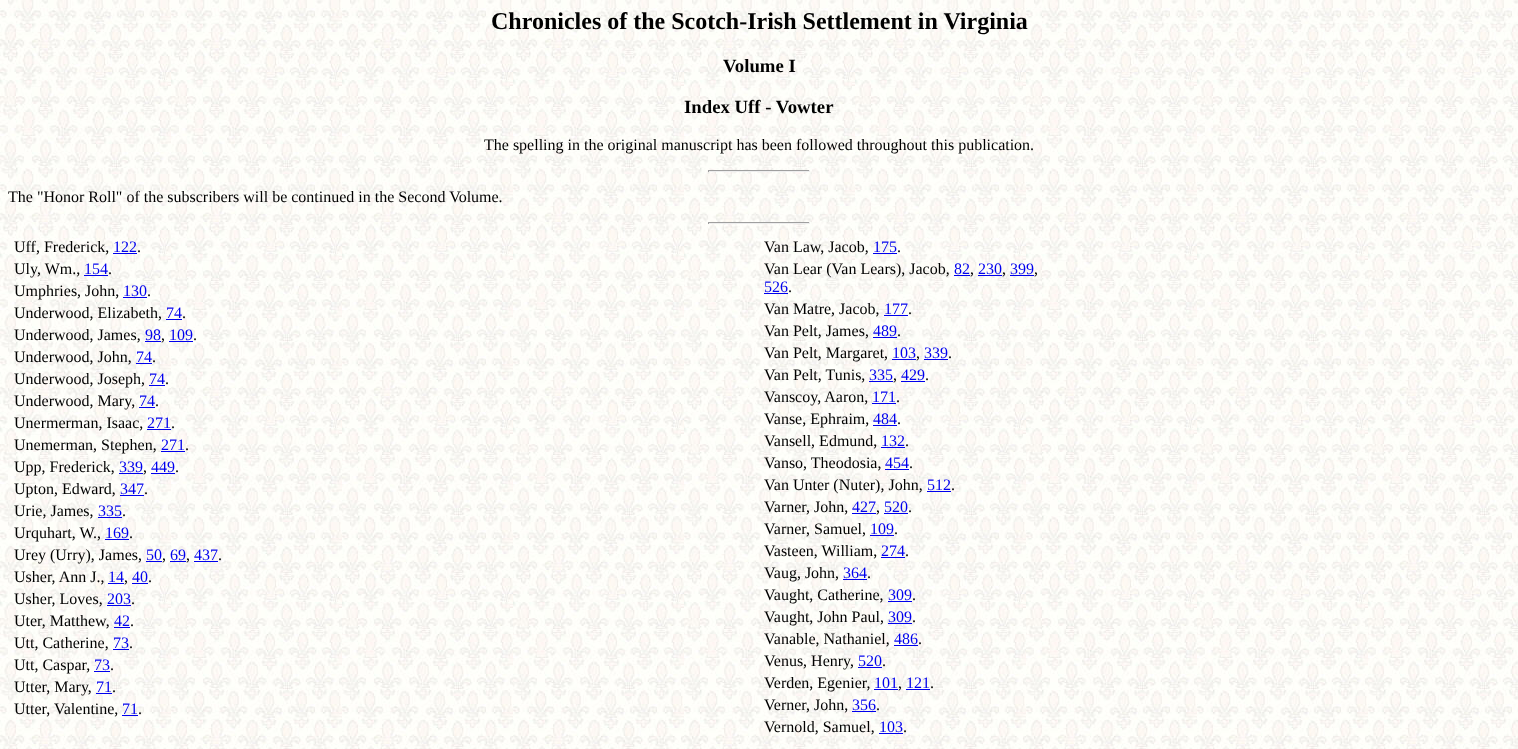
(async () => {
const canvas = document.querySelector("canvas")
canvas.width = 1518
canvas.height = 749
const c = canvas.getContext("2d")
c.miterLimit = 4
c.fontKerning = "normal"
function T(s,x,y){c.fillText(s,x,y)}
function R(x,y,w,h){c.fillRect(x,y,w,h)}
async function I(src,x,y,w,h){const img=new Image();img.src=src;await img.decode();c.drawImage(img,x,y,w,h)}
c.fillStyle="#fff"
R(0,0,1518,749)
await I("1.png",0,0,1518,749)
c.font="bold 24px Liberation Serif"
c.fillStyle="#000"
T("Chronicles of the Scotch-Irish Settlement in Virginia",491,29)
c.font="bold 18.75px Liberation Serif"
T("Volume I",723,72)
T("Index Uff - Vowter",684,113)
c.font="16px Liberation Serif"
T("The spelling in the original manuscript has been followed throughout this publication.",484,150)
c.fillStyle="#9f9f9f"
R(708,170,102,1)
c.fillStyle="#eee"
R(809,170,1,2)
R(708,171,102,1)
c.fillStyle="#9f9f9f"
R(708,170,1,2)
c.fillStyle="#000"
T("The \"Honor Roll\" of the subscribers will be continued in the Second Volume.",8,202)
c.fillStyle="#9f9f9f"
R(708,222,102,1)
c.fillStyle="#eee"
R(809,222,1,2)
R(708,223,102,1)
c.fillStyle="#9f9f9f"
R(708,222,1,2)
c.fillStyle="#000"
T("Uff, Frederick,",14,252)
c.fillStyle="#00e"
T("122",113,252)
R(113,253,24,1)
c.fillStyle="#000"
T(".",137,252)
T("Uly, Wm.,",14,274)
c.fillStyle="#00e"
T("154",84,274)
R(84,275,24,1)
c.fillStyle="#000"
T(".",108,274)
T("Umphries, John,",14,296)
c.fillStyle="#00e"
T("130",123,296)
R(123,297,24,1)
c.fillStyle="#000"
T(".",147,296)
T("Underwood, Elizabeth,",14,318)
c.fillStyle="#00e"
T("74",166,318)
R(166,319,16,1)
c.fillStyle="#000"
T(".",182,318)
T("Underwood, James,",14,340)
c.fillStyle="#00e"
T("98",145,340)
R(145,341,16,1)
c.fillStyle="#000"
T(",",161,340)
c.fillStyle="#00e"
T("109",169,340)
R(169,341,24,1)
c.fillStyle="#000"
T(".",193,340)
T("Underwood, John,",14,362)
c.fillStyle="#00e"
T("74",136,362)
R(136,363,16,1)
c.fillStyle="#000"
T(".",152,362)
T("Underwood, Joseph,",14,384)
c.fillStyle="#00e"
T("74",149,384)
R(149,385,16,1)
c.fillStyle="#000"
T(".",165,384)
T("Underwood, Mary,",14,406)
c.fillStyle="#00e"
T("74",139,406)
R(139,407,16,1)
c.fillStyle="#000"
T(".",155,406)
T("Unermerman, Isaac,",14,428)
c.fillStyle="#00e"
T("271",147,428)
R(147,429,24,1)
c.fillStyle="#000"
T(".",171,428)
T("Unemerman, Stephen,",14,450)
c.fillStyle="#00e"
T("271",161,450)
R(161,451,24,1)
c.fillStyle="#000"
T(".",185,450)
T("Upp, Frederick,",14,472)
c.fillStyle="#00e"
T("339",119,472)
R(119,473,24,1)
c.fillStyle="#000"
T(",",143,472)
c.fillStyle="#00e"
T("449",151,472)
R(151,473,24,1)
c.fillStyle="#000"
T(".",175,472)
T("Upton, Edward,",14,494)
c.fillStyle="#00e"
T("347",120,494)
R(120,495,24,1)
c.fillStyle="#000"
T(".",144,494)
T("Urie, James,",14,516)
c.fillStyle="#00e"
T("335",98,516)
R(98,517,24,1)
c.fillStyle="#000"
T(".",122,516)
T("Urquhart, W.,",14,538)
c.fillStyle="#00e"
T("169",105,538)
R(105,539,24,1)
c.fillStyle="#000"
T(".",129,538)
T("Urey (Urry), James,",14,560)
c.fillStyle="#00e"
T("50",146,560)
R(146,561,16,1)
c.fillStyle="#000"
T(",",162,560)
c.fillStyle="#00e"
T("69",170,560)
R(170,561,16,1)
c.fillStyle="#000"
T(",",186,560)
c.fillStyle="#00e"
T("437",194,560)
R(194,561,24,1)
c.fillStyle="#000"
T(".",218,560)
T("Usher, Ann J.,",14,582)
c.fillStyle="#00e"
T("14",108,582)
R(108,583,16,1)
c.fillStyle="#000"
T(",",124,582)
c.fillStyle="#00e"
T("40",132,582)
R(132,583,16,1)
c.fillStyle="#000"
T(".",148,582)
T("Usher, Loves,",14,604)
c.fillStyle="#00e"
T("203",107,604)
R(107,605,24,1)
c.fillStyle="#000"
T(".",131,604)
T("Uter, Matthew,",14,626)
c.fillStyle="#00e"
T("42",114,626)
R(114,627,16,1)
c.fillStyle="#000"
T(".",130,626)
T("Utt, Catherine,",14,648)
c.fillStyle="#00e"
T("73",113,648)
R(113,649,16,1)
c.fillStyle="#000"
T(".",129,648)
T("Utt, Caspar,",14,670)
c.fillStyle="#00e"
T("73",94,670)
R(94,671,16,1)
c.fillStyle="#000"
T(".",110,670)
T("Utter, Mary,",14,692)
c.fillStyle="#00e"
T("71",96,692)
R(96,693,16,1)
c.fillStyle="#000"
T(".",112,692)
T("Utter, Valentine,",14,714)
c.fillStyle="#00e"
T("71",122,714)
R(122,715,16,1)
c.fillStyle="#000"
T(".",138,714)
T("Van Law, Jacob,",764,252)
c.fillStyle="#00e"
T("175",873,252)
R(873,253,24,1)
c.fillStyle="#000"
T(".",897,252)
T("Van Lear (Van Lears), Jacob,",764,274)
c.fillStyle="#00e"
T("82",954,274)
R(954,275,16,1)
c.fillStyle="#000"
T(",",970,274)
c.fillStyle="#00e"
T("230",978,274)
R(978,275,24,1)
c.fillStyle="#000"
T(",",1002,274)
c.fillStyle="#00e"
T("399",1010,274)
R(1010,275,24,1)
c.fillStyle="#000"
T(",",1034,274)
c.fillStyle="#00e"
T("526",764,292)
R(764,293,24,1)
c.fillStyle="#000"
T(".",788,292)
T("Van Matre, Jacob,",764,314)
c.fillStyle="#00e"
T("177",884,314)
R(884,315,24,1)
c.fillStyle="#000"
T(".",908,314)
T("Van Pelt, James,",764,336)
c.fillStyle="#00e"
T("489",873,336)
R(873,337,24,1)
c.fillStyle="#000"
T(".",897,336)
T("Van Pelt, Margaret,",764,358)
c.fillStyle="#00e"
T("103",892,358)
R(892,359,24,1)
c.fillStyle="#000"
T(",",916,358)
c.fillStyle="#00e"
T("339",924,358)
R(924,359,24,1)
c.fillStyle="#000"
T(".",948,358)
T("Van Pelt, Tunis,",764,380)
c.fillStyle="#00e"
T("335",869,380)
R(869,381,24,1)
c.fillStyle="#000"
T(",",893,380)
c.fillStyle="#00e"
T("429",901,380)
R(901,381,24,1)
c.fillStyle="#000"
T(".",925,380)
T("Vanscoy, Aaron,",764,402)
c.fillStyle="#00e"
T("171",872,402)
R(872,403,24,1)
c.fillStyle="#000"
T(".",896,402)
T("Vanse, Ephraim,",764,424)
c.fillStyle="#00e"
T("484",873,424)
R(873,425,24,1)
c.fillStyle="#000"
T(".",897,424)
T("Vansell, Edmund,",764,446)
c.fillStyle="#00e"
T("132",881,446)
R(881,447,24,1)
c.fillStyle="#000"
T(".",905,446)
T("Vanso, Theodosia,",764,468)
c.fillStyle="#00e"
T("454",885,468)
R(885,469,24,1)
c.fillStyle="#000"
T(".",909,468)
T("Van Unter (Nuter), John,",764,490)
c.fillStyle="#00e"
T("512",927,490)
R(927,491,24,1)
c.fillStyle="#000"
T(".",951,490)
T("Varner, John,",764,512)
c.fillStyle="#00e"
T("427",852,512)
R(852,513,24,1)
c.fillStyle="#000"
T(",",876,512)
c.fillStyle="#00e"
T("520",884,512)
R(884,513,24,1)
c.fillStyle="#000"
T(".",908,512)
T("Varner, Samuel,",764,534)
c.fillStyle="#00e"
T("109",870,534)
R(870,535,24,1)
c.fillStyle="#000"
T(".",894,534)
T("Vasteen, William,",764,556)
c.fillStyle="#00e"
T("274",881,556)
R(881,557,24,1)
c.fillStyle="#000"
T(".",905,556)
T("Vaug, John,",764,578)
c.fillStyle="#00e"
T("364",843,578)
R(843,579,24,1)
c.fillStyle="#000"
T(".",867,578)
T("Vaught, Catherine,",764,600)
c.fillStyle="#00e"
T("309",888,600)
R(888,601,24,1)
c.fillStyle="#000"
T(".",912,600)
T("Vaught, John Paul,",764,622)
c.fillStyle="#00e"
T("309",888,622)
R(888,623,24,1)
c.fillStyle="#000"
T(".",912,622)
T("Vanable, Nathaniel,",764,644)
c.fillStyle="#00e"
T("486",894,644)
R(894,645,24,1)
c.fillStyle="#000"
T(".",918,644)
T("Venus, Henry,",764,666)
c.fillStyle="#00e"
T("520",858,666)
R(858,667,24,1)
c.fillStyle="#000"
T(".",882,666)
T("Verden, Egenier,",764,688)
c.fillStyle="#00e"
T("101",874,688)
R(874,689,24,1)
T("121",906,688)
R(906,689,24,1)
c.fillStyle="#000"
T(",",898,688)
T(".",930,688)
T("Verner, John,",764,710)
c.fillStyle="#00e"
T("356",852,710)
R(852,711,24,1)
c.fillStyle="#000"
T(".",876,710)
T("Vernold, Samuel,",764,732)
c.fillStyle="#00e"
T("103",879,732)
R(879,733,24,1)
c.fillStyle="#000"
T(".",903,732)
})()
